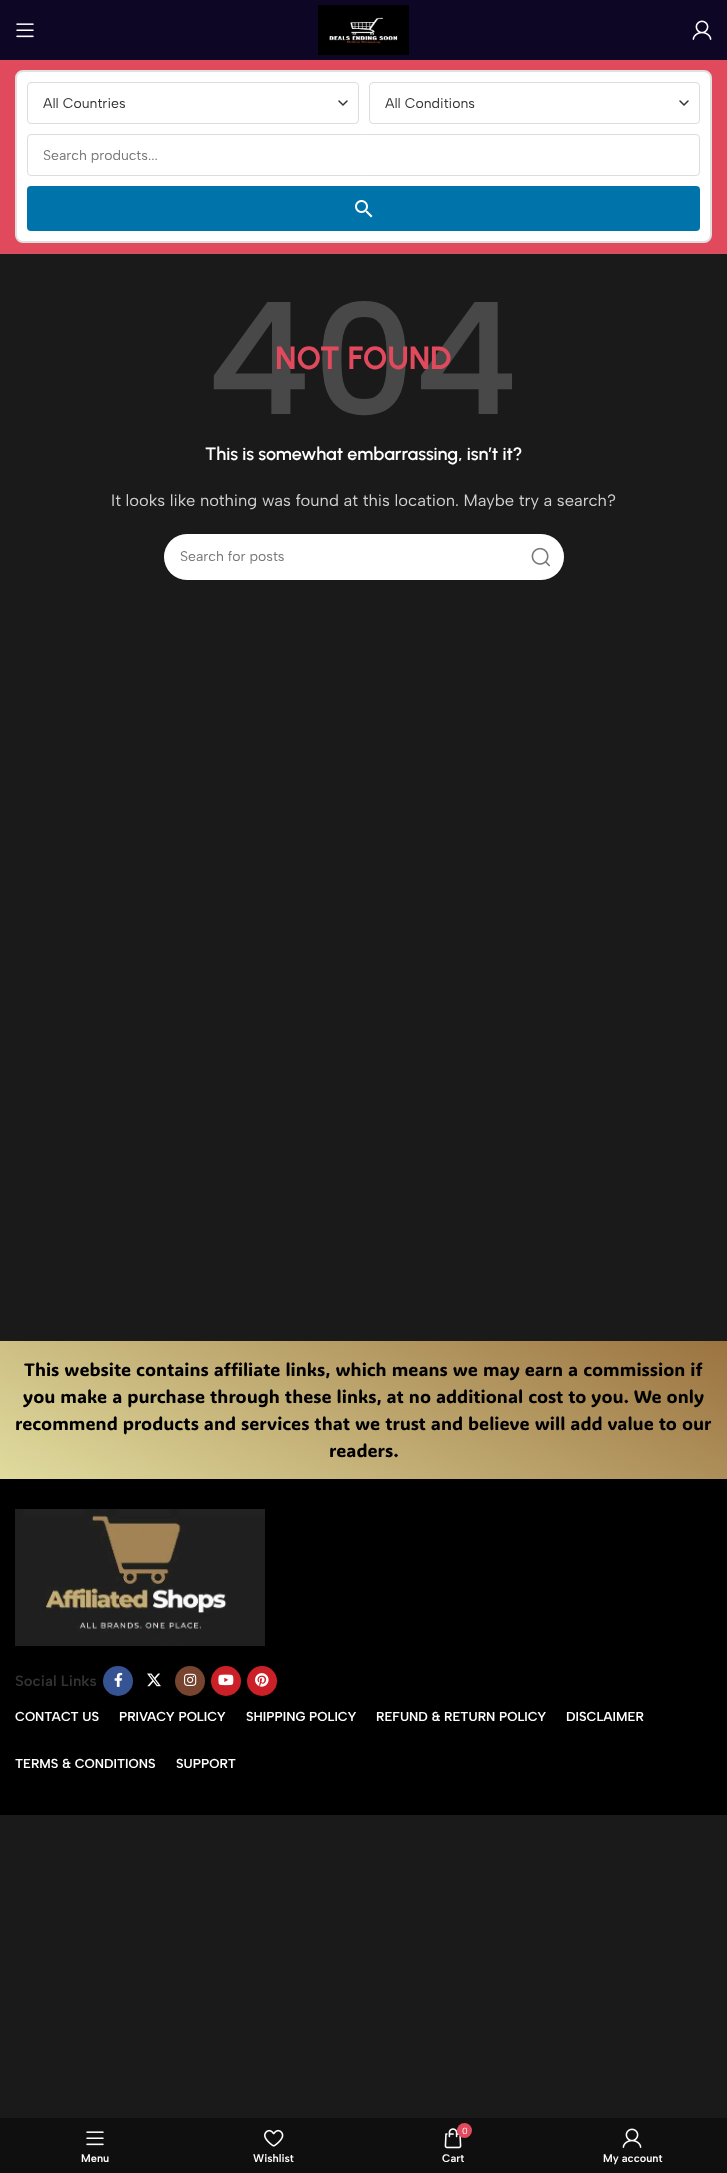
(async () => {
const canvas = document.querySelector("canvas")
canvas.width = 727
canvas.height = 2173
const c = canvas.getContext("2d")
c.miterLimit = 4
c.fontKerning = "normal"
function T(s,x,y){c.fillText(s,x,y)}
function R(x,y,w,h){c.fillRect(x,y,w,h)}
function Q(x,y,w,h,r){c.beginPath();c.roundRect(x,y,w,h,r);c.fill()}
async function I(src,x,y,w,h){const img=new Image();img.src=src;await img.decode();c.drawImage(img,x,y,w,h)}
let gradient, path
c.fillStyle="#1a1a1a"
R(0,0,727,2173)
c.fillStyle="#0d0625"
R(0,0,727,60)
await I("1.png",16,23,18,15)
await I("2.png",318,5,91,50)
await I("3.png",692,20,20,20)
c.fillStyle="#e14a5c"
R(0,60,727,193)
c.fillStyle="#ce5563"
R(0,253,727,1)
c.fillStyle="#fff"
c.beginPath()
c.roundRect(16,71,695,171,7)
c.fill()
c.strokeStyle="#e0e0e0"
c.lineWidth=2
c.stroke()
path = new Path2D("M339 101l4 4l4-4")
c.strokeStyle="#333"
c.lineWidth=1.5
c.lineCap="round"
c.stroke(path)
c.beginPath()
c.roundRect(27.5,82.5,331,41,3.5)
c.strokeStyle="#ddd"
c.lineWidth=1
c.stroke()
c.font="14px Albert Sans"
c.fillStyle="#333"
T("All Countries",43,108)
path = new Path2D("M680 101l4 4l4-4")
c.strokeStyle="#333"
c.lineWidth=1.5
c.stroke(path)
c.beginPath()
c.roundRect(369.5,82.5,330,41,3.5)
c.strokeStyle="#ddd"
c.lineWidth=1
c.stroke()
T("All Conditions",385,108)
c.beginPath()
c.roundRect(27.5,134.5,672,41,3.5)
c.stroke()
c.fillStyle="#777"
T("Search products...",43,160)
c.fillStyle="#0073aa"
Q(27,186,673,45,4)
await I("4.png",355,200,18,18)
c.font="600 160px Albert Sans"
c.fillStyle="#484848"
T("404",208,414)
c.font="bold 32px Urbanist"
c.fillStyle="#e14a5c"
T("NOT FOUND",275,369)
c.font="600 18px Urbanist"
c.fillStyle="#fff"
T("This is somewhat embarrassing, isn’t it?",205,460)
c.font="16.5px Albert Sans"
c.fillStyle="#d1d1d1"
T("It looks like nothing was found at this location. Maybe try a search?",111,506)
c.fillStyle="#fff"
Q(164,534,400,46,23)
c.beginPath()
c.roundRect(164.5,534.5,399,45,22.5)
c.strokeStyle="#ffffff33"
c.stroke()
c.font="14px Albert Sans"
c.fillStyle="#777"
T("Search for posts",180,561)
await I("5.png",531,547,19,20)
c.fillStyle="#000"
R(0,1479,727,336)
gradient = c.createLinearGradient(472,1206,255,1614)
gradient.addColorStop(0,"#9b7340")
gradient.addColorStop(1,"#e0db9e")
c.fillStyle = gradient
R(0,1341,727,138)
c.font="18px ADLaM Display"
c.fillStyle="#000"
T("This website contains affiliate links, which means we may earn a commission if",24,1376)
T("you make a purchase through these links, at no additional cost to you. We only",23,1403)
T("recommend products and services that we trust and believe will add value to our",15,1430)
T("readers.",329,1457)
await I("6.png",15,1509,250,137)
c.font="600 15px Albert Sans"
c.fillStyle="#333"
T("Social Links",15,1686)
c.fillStyle="#365493"
c.beginPath()
c.arc(118,1681,15,0,7)
c.fill()
await I("7.png",114,1672,9,15)
await I("8.png",147,1673,14,14)
c.fillStyle="#774430"
c.beginPath()
c.arc(190,1681,15,0,7)
c.fill()
await I("9.png",184,1673,13,13)
c.fillStyle="#cb2027"
c.beginPath()
c.arc(226,1681,15,0,7)
c.fill()
await I("10.png",218,1674,16,12)
c.beginPath()
c.arc(262,1681,15,0,7)
c.fill()
await I("11.png",255,1673,14,14)
c.font="600 13px Albert Sans"
c.fillStyle="#fff"
T("CONTACT US",15,1721)
T("PRIVACY POLICY",119,1721)
T("SHIPPING POLICY",246,1721)
T("REFUND & RETURN POLICY",376,1721)
T("DISCLAIMER",566,1721)
T("TERMS & CONDITIONS",15,1768)
T("SUPPORT",176,1768)
c.fillStyle="#0f0f0f"
R(0,2118,727,55)
await I("12.png",86,2131,18,15)
c.font="600 11px Albert Sans"
c.fillStyle="#fff"
T("Menu",81,2162)
await I("13.png",264,2129,20,18)
T("Wishlist",253,2162)
await I("14.png",444,2128,18,21)
c.fillStyle="#e14a5c"
c.beginPath()
c.arc(464.5,2130.5,7.5,0,7)
c.fill()
c.font="9px Albert Sans"
c.fillStyle="#fff"
T("0",462,2134)
c.font="600 11px Albert Sans"
T("Cart",442,2162)
await I("15.png",622,2128,20,20)
T("My account",603,2162)
})()
